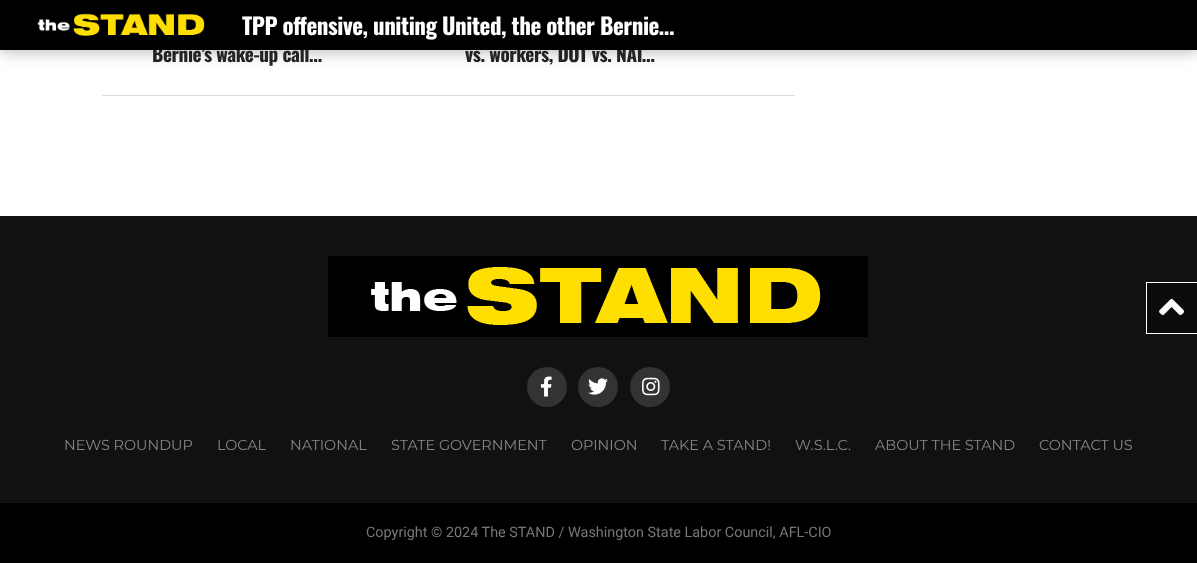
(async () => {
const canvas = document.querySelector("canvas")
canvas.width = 1197
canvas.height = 563
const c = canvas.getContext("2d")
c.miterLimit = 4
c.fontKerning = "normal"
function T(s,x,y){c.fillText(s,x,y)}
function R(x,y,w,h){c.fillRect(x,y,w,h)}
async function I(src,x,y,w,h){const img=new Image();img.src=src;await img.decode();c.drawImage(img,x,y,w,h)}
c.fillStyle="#fff"
R(0,0,1197,563)
c.fillStyle="#0000004d"
c.filter="blur(8px)"
c.beginPath()
c.rect(0,1,1197,50)
c.fill()
c.filter="none"
c.letterSpacing="-0.4px"
c.font="bold 19.25px Oswald"
c.fillStyle="#222"
T("Bernie’s wake-up call…",152,62)
T("vs. workers, DOT vs. NAI…",465,62)
c.fillStyle="#000"
R(0,0,1197,50)
await I("1.png",37,13,168,23)
c.letterSpacing="-0.45px"
c.font="bold 23px Oswald"
c.fillStyle="#fff"
T("TPP offensive, uniting United, the other Bernie…",242,35)
c.fillStyle="#ddd"
R(102,95,693,1)
c.fillStyle="#111"
R(0,216,1197,287)
await I("2.png",328,256,540,81)
c.fillStyle="#333"
c.beginPath()
c.arc(547,387,20,0,7)
c.fill()
await I("3.png",540,376,12,21)
c.beginPath()
c.arc(598,387,20,0,7)
c.fill()
await I("4.png",588,378,20,17)
c.beginPath()
c.arc(650,387,20,0,7)
c.fill()
await I("5.png",642,377,18,19)
c.letterSpacing="0px"
c.font="14.4px Montserrat"
c.fillStyle="#888"
T("NEWS ROUNDUP",64,450)
T("LOCAL",217,450)
T("NATIONAL",290,450)
T("STATE GOVERNMENT",391,450)
T("OPINION",571,450)
T("TAKE A STAND!",661,450)
T("W.S.L.C.",795,450)
T("ABOUT THE STAND",875,450)
T("CONTACT US",1039,450)
c.fillStyle="#000"
R(0,503,1197,60)
c.font="14.4px Roboto"
c.fillStyle="#777"
T("Copyright © 2024 The STAND / Washington State Labor Council, AFL-CIO",366,537)
c.fillStyle="#0c0c0c"
R(1147,283,50,50)
c.fillStyle="#fff"
R(1146,282,51,1)
R(1146,333,51,1)
R(1146,282,1,52)
await I("6.png",1159,299,26,16)
})()
